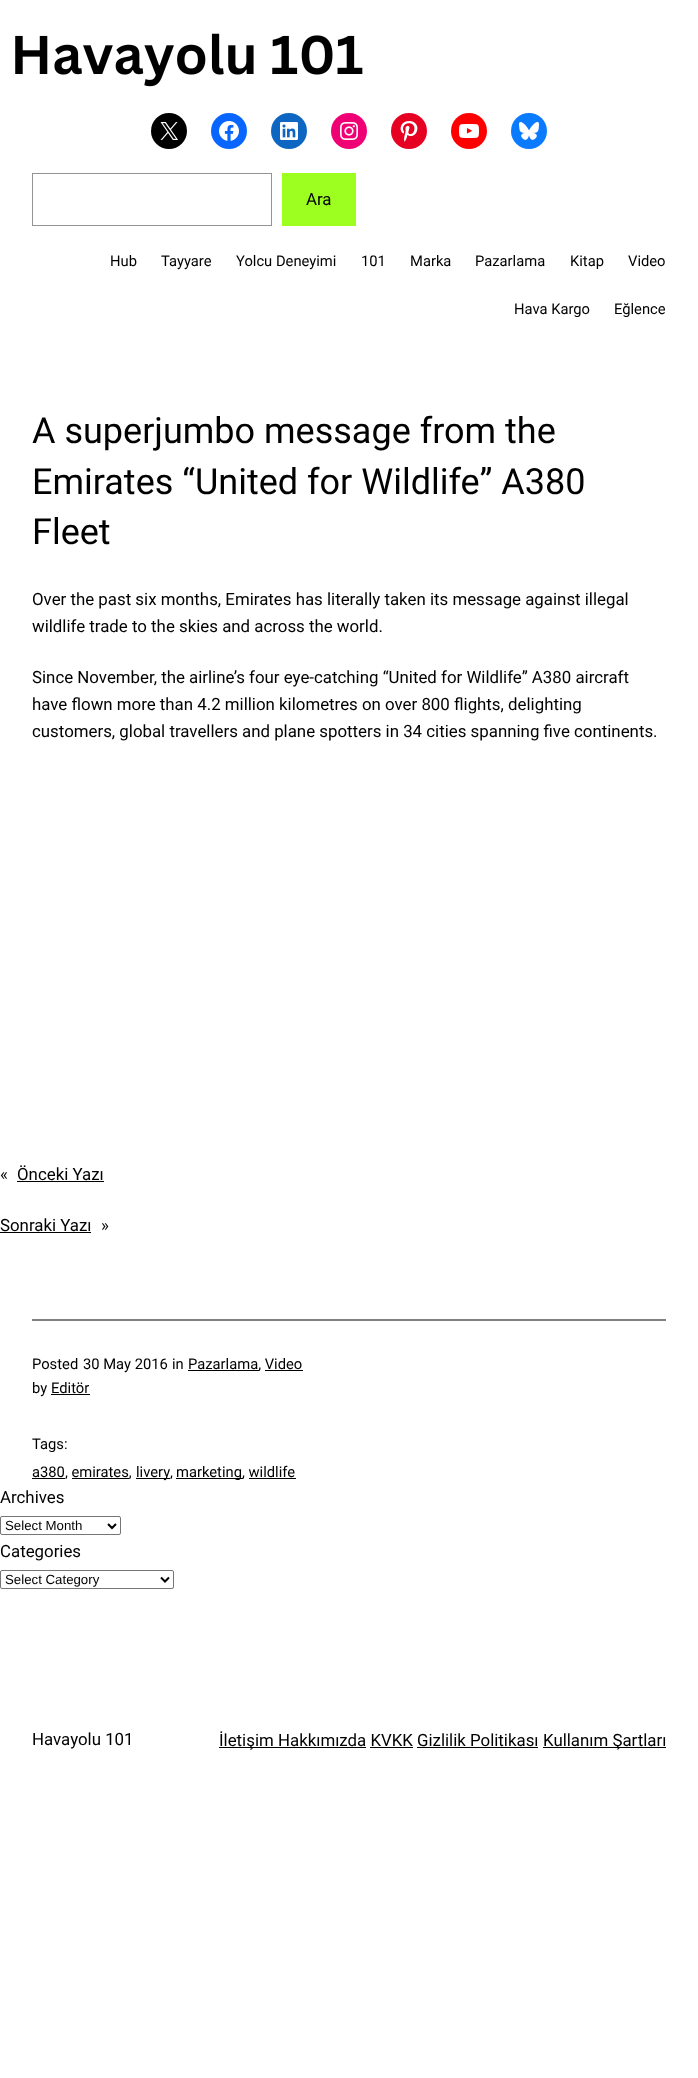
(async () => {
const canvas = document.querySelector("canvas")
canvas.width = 698
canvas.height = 2078
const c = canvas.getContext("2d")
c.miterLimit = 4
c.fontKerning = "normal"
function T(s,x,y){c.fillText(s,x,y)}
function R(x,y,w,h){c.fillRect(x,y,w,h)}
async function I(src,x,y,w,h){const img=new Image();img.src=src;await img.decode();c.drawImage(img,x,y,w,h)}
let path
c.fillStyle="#fff"
R(0,0,698,2078)
await I("1.png",15,33,348,54)
c.fillStyle="#000"
c.beginPath()
c.arc(169,131,18,0,7)
c.fill()
await I("2.png",160,122,18,18)
c.fillStyle="#0866ff"
c.beginPath()
c.arc(229,131,18,0,7)
c.fill()
await I("3.png",219,121,20,20)
c.fillStyle="#0d66c2"
c.beginPath()
c.arc(289,131,18,0,7)
c.fill()
await I("4.png",280,122,18,18)
c.fillStyle="#f00075"
c.beginPath()
c.arc(349,131,18,0,7)
c.fill()
await I("5.png",340,122,18,18)
c.fillStyle="#e60122"
c.beginPath()
c.arc(409,131,18,0,7)
c.fill()
await I("6.png",400,121,18,21)
c.fillStyle="#f00"
c.beginPath()
c.arc(469,131,18,0,7)
c.fill()
await I("7.png",459,124,20,14)
c.fillStyle="#0a7aff"
c.beginPath()
c.arc(529,131,18,0,7)
c.fill()
await I("8.png",519,122,20,18)
c.strokeStyle="#949494"
c.strokeRect(32.5,173.5,239,52)
c.fillStyle="#9dff20"
R(282,173,74,53)
c.font="16.85px Roboto"
c.fillStyle="#000"
T("Ara",306,205)
c.font="14.75px Roboto"
T("Hub",110,266)
T("Tayyare",161,266)
T("Yolcu Deneyimi",236,266)
T("101",361,266)
T("Marka",410,266)
T("Pazarlama",475,266)
T("Kitap",570,266)
T("Video",628,266)
T("Hava Kargo",514,314)
T("Eğlence",614,314)
c.font="36px Roboto"
T("A superjumbo message from the",32,443)
T("Emirates “United for Wildlife” A380",32,494)
T("Fleet",32,544)
c.font="16.85px Roboto"
T("Over the past six months, Emirates has literally taken its message against illegal",32,605)
T("wildlife trade to the skies and across the world.",32,632)
T("Since November, the airline’s four eye-catching “United for Wildlife” A380 aircraft",32,683)
T("have flown more than 4.2 million kilometres on over 800 flights, delighting",32,710)
T("customers, global travellers and plane spotters in 34 cities spanning five continents.",32,737)
T("«",0,1180)
T("Önceki Yazı",17,1180)
R(17,1181,87,1)
T("Sonraki Yazı",0,1231)
R(0,1232,91,1)
T("»",101,1231)
c.fillStyle="#808080"
R(32,1319,634,2)
c.font="14.75px Roboto"
c.fillStyle="#000"
T("Posted",32,1369)
T("30 May 2016",83,1369)
T("in",172,1369)
R(188,1370,71,1)
T("Pazarlama, Video",188,1369)
R(265,1370,38,1)
T("by",32,1393)
T("Editör",51,1393)
R(51,1394,39,1)
T("Tags:",32,1449)
R(32,1478,33,1)
T("a380, emirates,",32,1477)
R(136,1478,34,1)
T("livery",136,1477)
R(176,1478,67,1)
T("marketing, wildlife",176,1477)
R(72,1478,57,1)
T(",",170,1477)
R(249,1478,47,1)
c.font="16.85px Roboto"
T("Archives",0,1503)
c.beginPath()
c.roundRect(.5,1516.5,120,18,1.5)
c.strokeStyle="#767676"
c.stroke()
path = new Path2D("M108 1524l4 4l4-4")
c.strokeStyle="#000"
c.lineWidth=2
c.stroke(path)
c.font="13.25px Liberation Sans"
T("Select Month",5,1530)
c.font="16.85px Roboto"
T("Categories",0,1557)
c.beginPath()
c.roundRect(.5,1570.5,173,18,1.5)
c.strokeStyle="#767676"
c.lineWidth=1
c.stroke()
path = new Path2D("M161 1577.5l4 4l4-4")
c.strokeStyle="#000"
c.lineWidth=2
c.stroke(path)
c.font="13.25px Liberation Sans"
T("Select Category",5,1584)
c.font="16.85px Roboto"
T("Havayolu 101",32,1745)
R(219,1747,147,1)
T("İletişim Hakkımızda KVKK Gizlilik Politikası",219,1746)
R(543,1747,123,1)
T("Kullanım Şartları",543,1746)
R(370,1747,43,1)
R(417,1747,121,1)
})()
